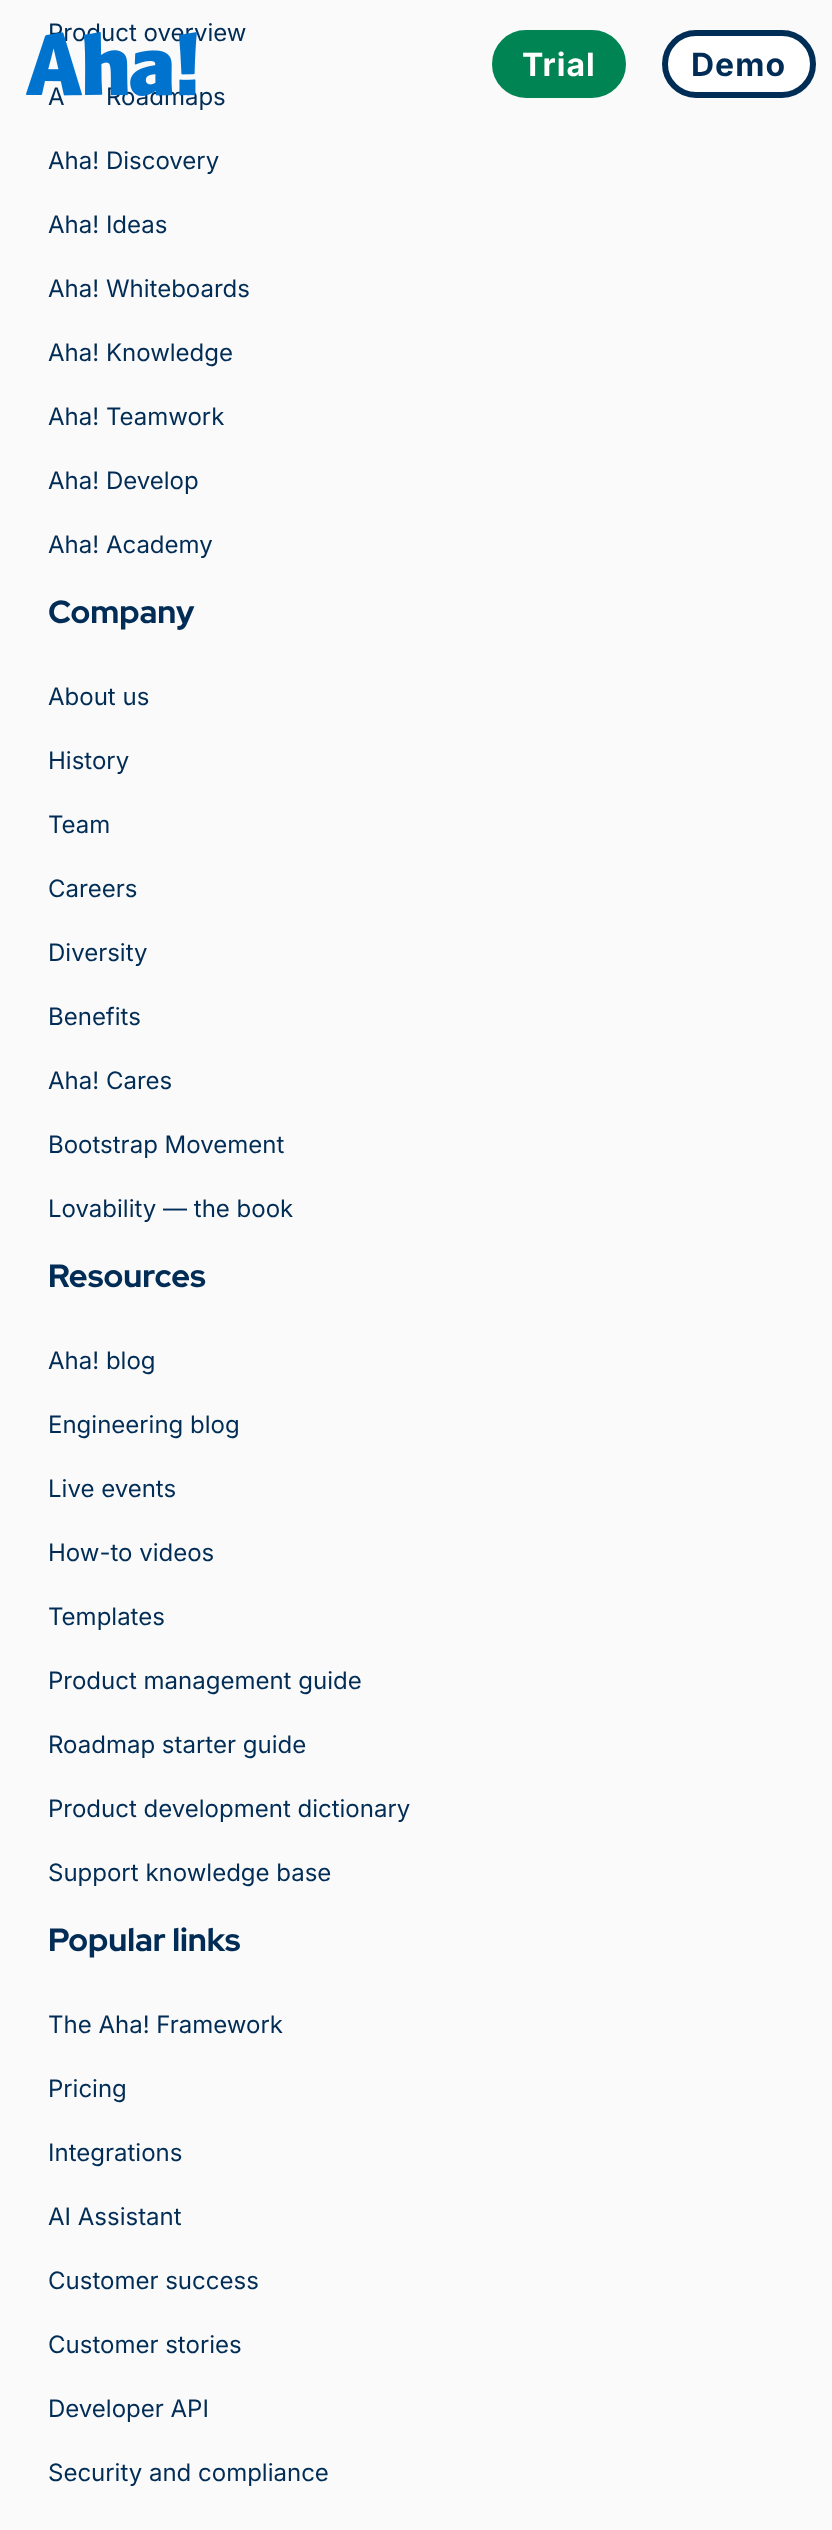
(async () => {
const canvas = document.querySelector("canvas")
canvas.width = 832
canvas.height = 2530
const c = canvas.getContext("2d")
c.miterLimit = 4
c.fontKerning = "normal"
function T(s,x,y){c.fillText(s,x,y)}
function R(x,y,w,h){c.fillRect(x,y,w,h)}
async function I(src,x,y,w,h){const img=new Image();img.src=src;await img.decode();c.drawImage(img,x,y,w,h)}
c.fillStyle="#fafafa"
R(0,0,832,2530)
c.font="24px Inter"
c.fillStyle="#002c55"
T("Product overview",48,41)
T("A",48,105)
T("Roadmaps",106,105)
T("Aha! Discovery",48,169)
T("Aha! Ideas",48,233)
T("Aha! Whiteboards",48,297)
T("Aha! Knowledge",48,361)
T("Aha! Teamwork",48,425)
T("Aha! Develop",48,489)
T("Aha! Academy",48,553)
c.font="800 32px Red Hat Display"
T("Company",48,623)
c.font="24px Inter"
T("About us",48,705)
T("History",48,769)
T("Team",48,833)
T("Careers",48,897)
T("Diversity",48,961)
T("Benefits",48,1025)
T("Aha! Cares",48,1089)
T("Bootstrap Movement",48,1153)
T("Lovability — the book",48,1217)
c.font="800 32px Red Hat Display"
T("Resources",48,1287)
c.font="24px Inter"
T("Aha! blog",48,1369)
T("Engineering blog",48,1433)
T("Live events",48,1497)
T("How-to videos",48,1561)
T("Templates",48,1625)
T("Product management guide",48,1689)
T("Roadmap starter guide",48,1753)
T("Product development dictionary",48,1817)
T("Support knowledge base",48,1881)
c.font="800 32px Red Hat Display"
T("Popular links",48,1951)
c.font="24px Inter"
T("The Aha! Framework",48,2033)
T("Pricing",48,2097)
T("Integrations",48,2161)
T("AI Assistant",48,2225)
T("Customer success",48,2289)
T("Customer stories",48,2353)
T("Developer API",48,2417)
T("Security and compliance",48,2481)
await I("1.png",26,32,171,64)
c.fillStyle="#018454"
c.beginPath()
c.roundRect(495,33,128,62,31)
c.fill()
c.strokeStyle="#018454"
c.lineWidth=6
c.stroke()
c.letterSpacing="1px"
c.font="bold 32px Inter"
c.fillStyle="#fff"
T("Trial",522,76)
c.beginPath()
c.roundRect(665,33,148,62,31)
c.fill()
c.strokeStyle="#002d56"
c.stroke()
c.fillStyle="#002c55"
T("Demo",691,76)
})()
